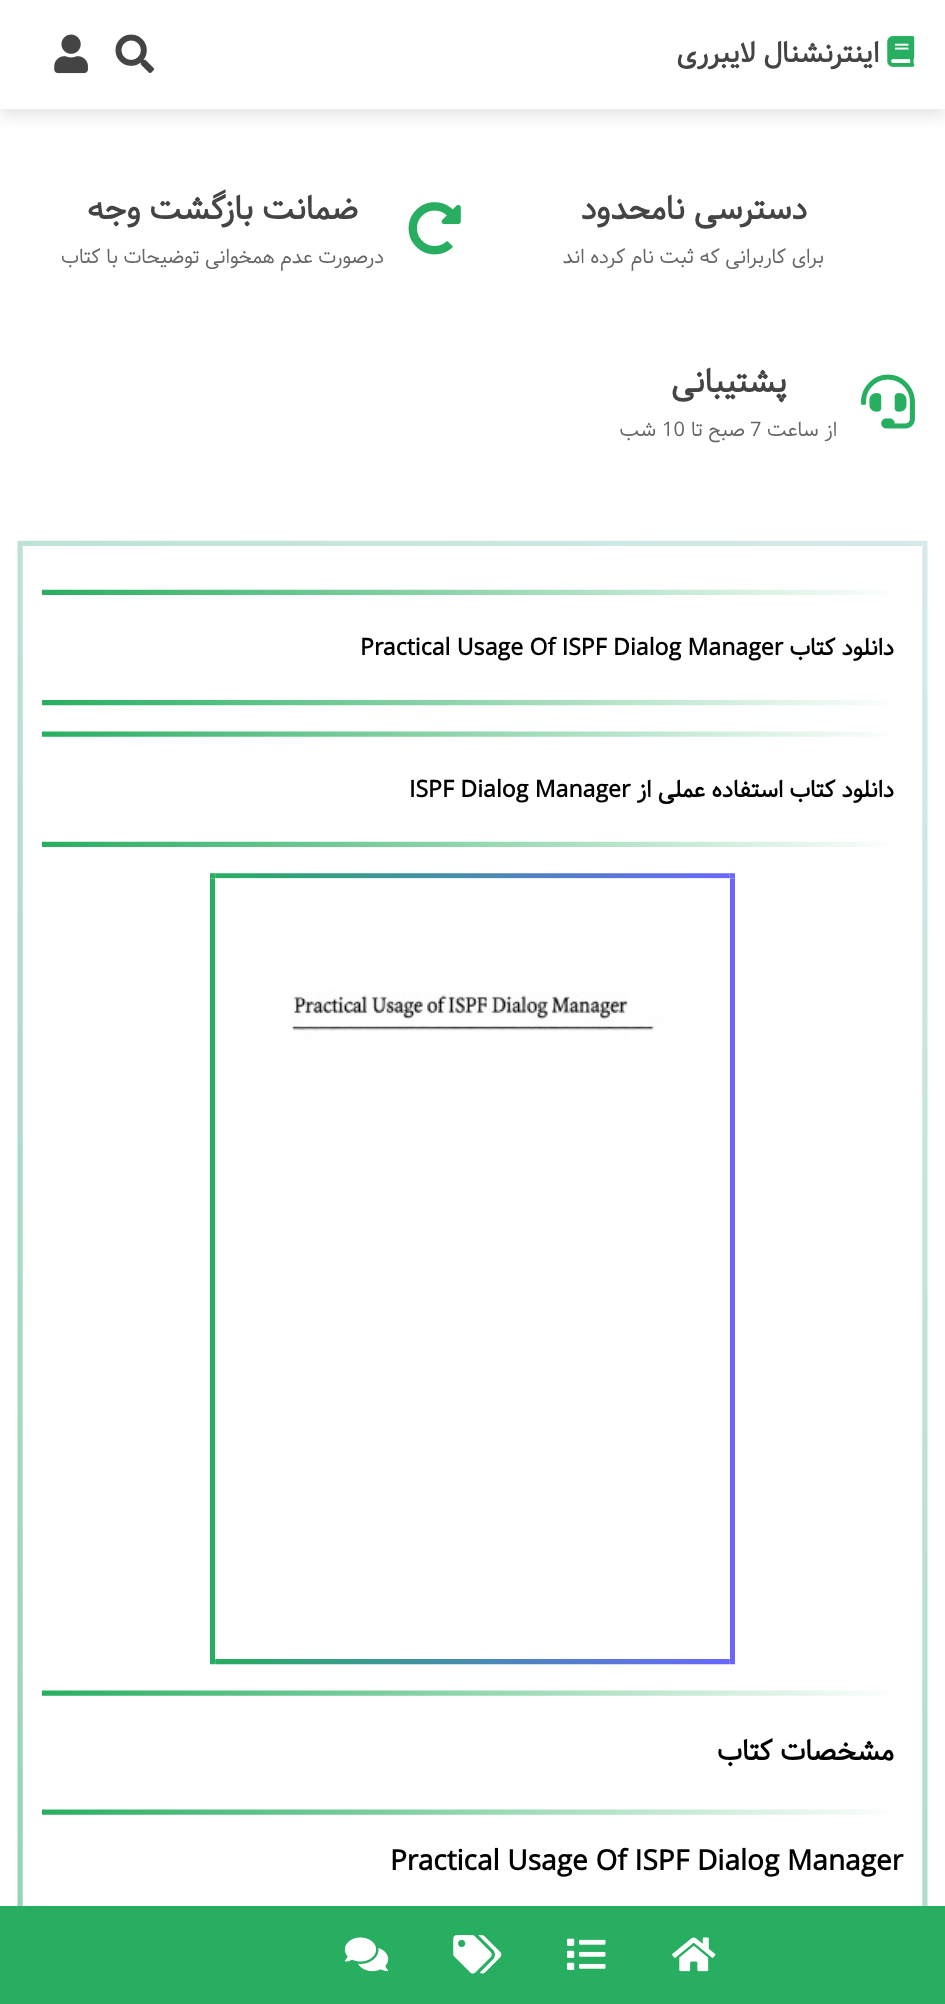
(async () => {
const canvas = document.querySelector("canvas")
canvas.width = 945
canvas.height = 2004
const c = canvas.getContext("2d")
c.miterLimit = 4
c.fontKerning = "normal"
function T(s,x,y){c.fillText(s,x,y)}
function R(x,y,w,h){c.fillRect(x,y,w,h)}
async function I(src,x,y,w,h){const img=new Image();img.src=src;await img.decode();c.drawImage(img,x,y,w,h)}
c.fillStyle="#fff"
R(0,0,945,2004)
c.fillStyle="#0000001a"
c.filter="blur(7.5px)"
c.beginPath()
c.rect(0,7,945,109)
c.fill()
c.filter="none"
c.fillStyle="#fff"
R(0,0,945,109)
await I("1.png",887,36,28,31)
c.direction="rtl"
c.font="bold 28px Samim"
c.fillStyle="#444"
T("اینترنشنال لایبرری",879,62)
await I("2.png",115,34,39,39)
await I("3.png",54,34,34,40)
c.font="bold 32.25px Samim"
T("دسترسی نامحدود",807,219)
c.font="20px Samim"
c.fillStyle="#666"
T("برای کاربرانی که ثبت نام کرده اند",824,263)
await I("4.png",408,202,53,53)
c.font="bold 32.25px Samim"
c.fillStyle="#444"
T("ضمانت بازگشت وجه",358,219)
c.font="20px Samim"
c.fillStyle="#666"
T("درصورت عدم همخوانی توضیحات با کتاب",384,263)
await I("5.png",861,374,54,55)
c.font="bold 32.25px Samim"
c.fillStyle="#444"
T("پشتیبانی",787,392)
c.font="20px Samim"
c.fillStyle="#666"
T("از ساعت",837,436)
c.direction="ltr"
T("7",750,436)
c.direction="rtl"
T("صبح تا",745,436)
c.direction="ltr"
T("10",662,436)
c.direction="rtl"
T("شب",656,436)
await I("6.png",17,540,911,1366)
await I("7.png",42,589,846,117)
c.font="bold 23.1px Samim"
c.fillStyle="#000"
T("دانلود کتاب",894,655)
c.direction="ltr"
T("Practical Usage Of ISPF Dialog Manager",360,655)
await I("8.png",42,731,846,116)
c.direction="rtl"
T("دانلود کتاب استفاده عملی از",894,797)
c.direction="ltr"
T("ISPF Dialog Manager",409,797)
await I("9.png",210,873,525,792)
await I("10.png",215,878,515,781)
await I("11.png",42,1690,846,125)
c.direction="rtl"
c.font="bold 28px Samim"
T("مشخصات کتاب",894,1760)
c.direction="ltr"
T("Practical Usage Of ISPF Dialog Manager",390,1870)
c.fillStyle="#27ae60"
R(0,1906,945,98)
await I("12.png",672,1937,44,35)
await I("13.png",567,1938,39,32)
await I("14.png",453,1935,49,39)
await I("15.png",344,1937,45,35)
})()
